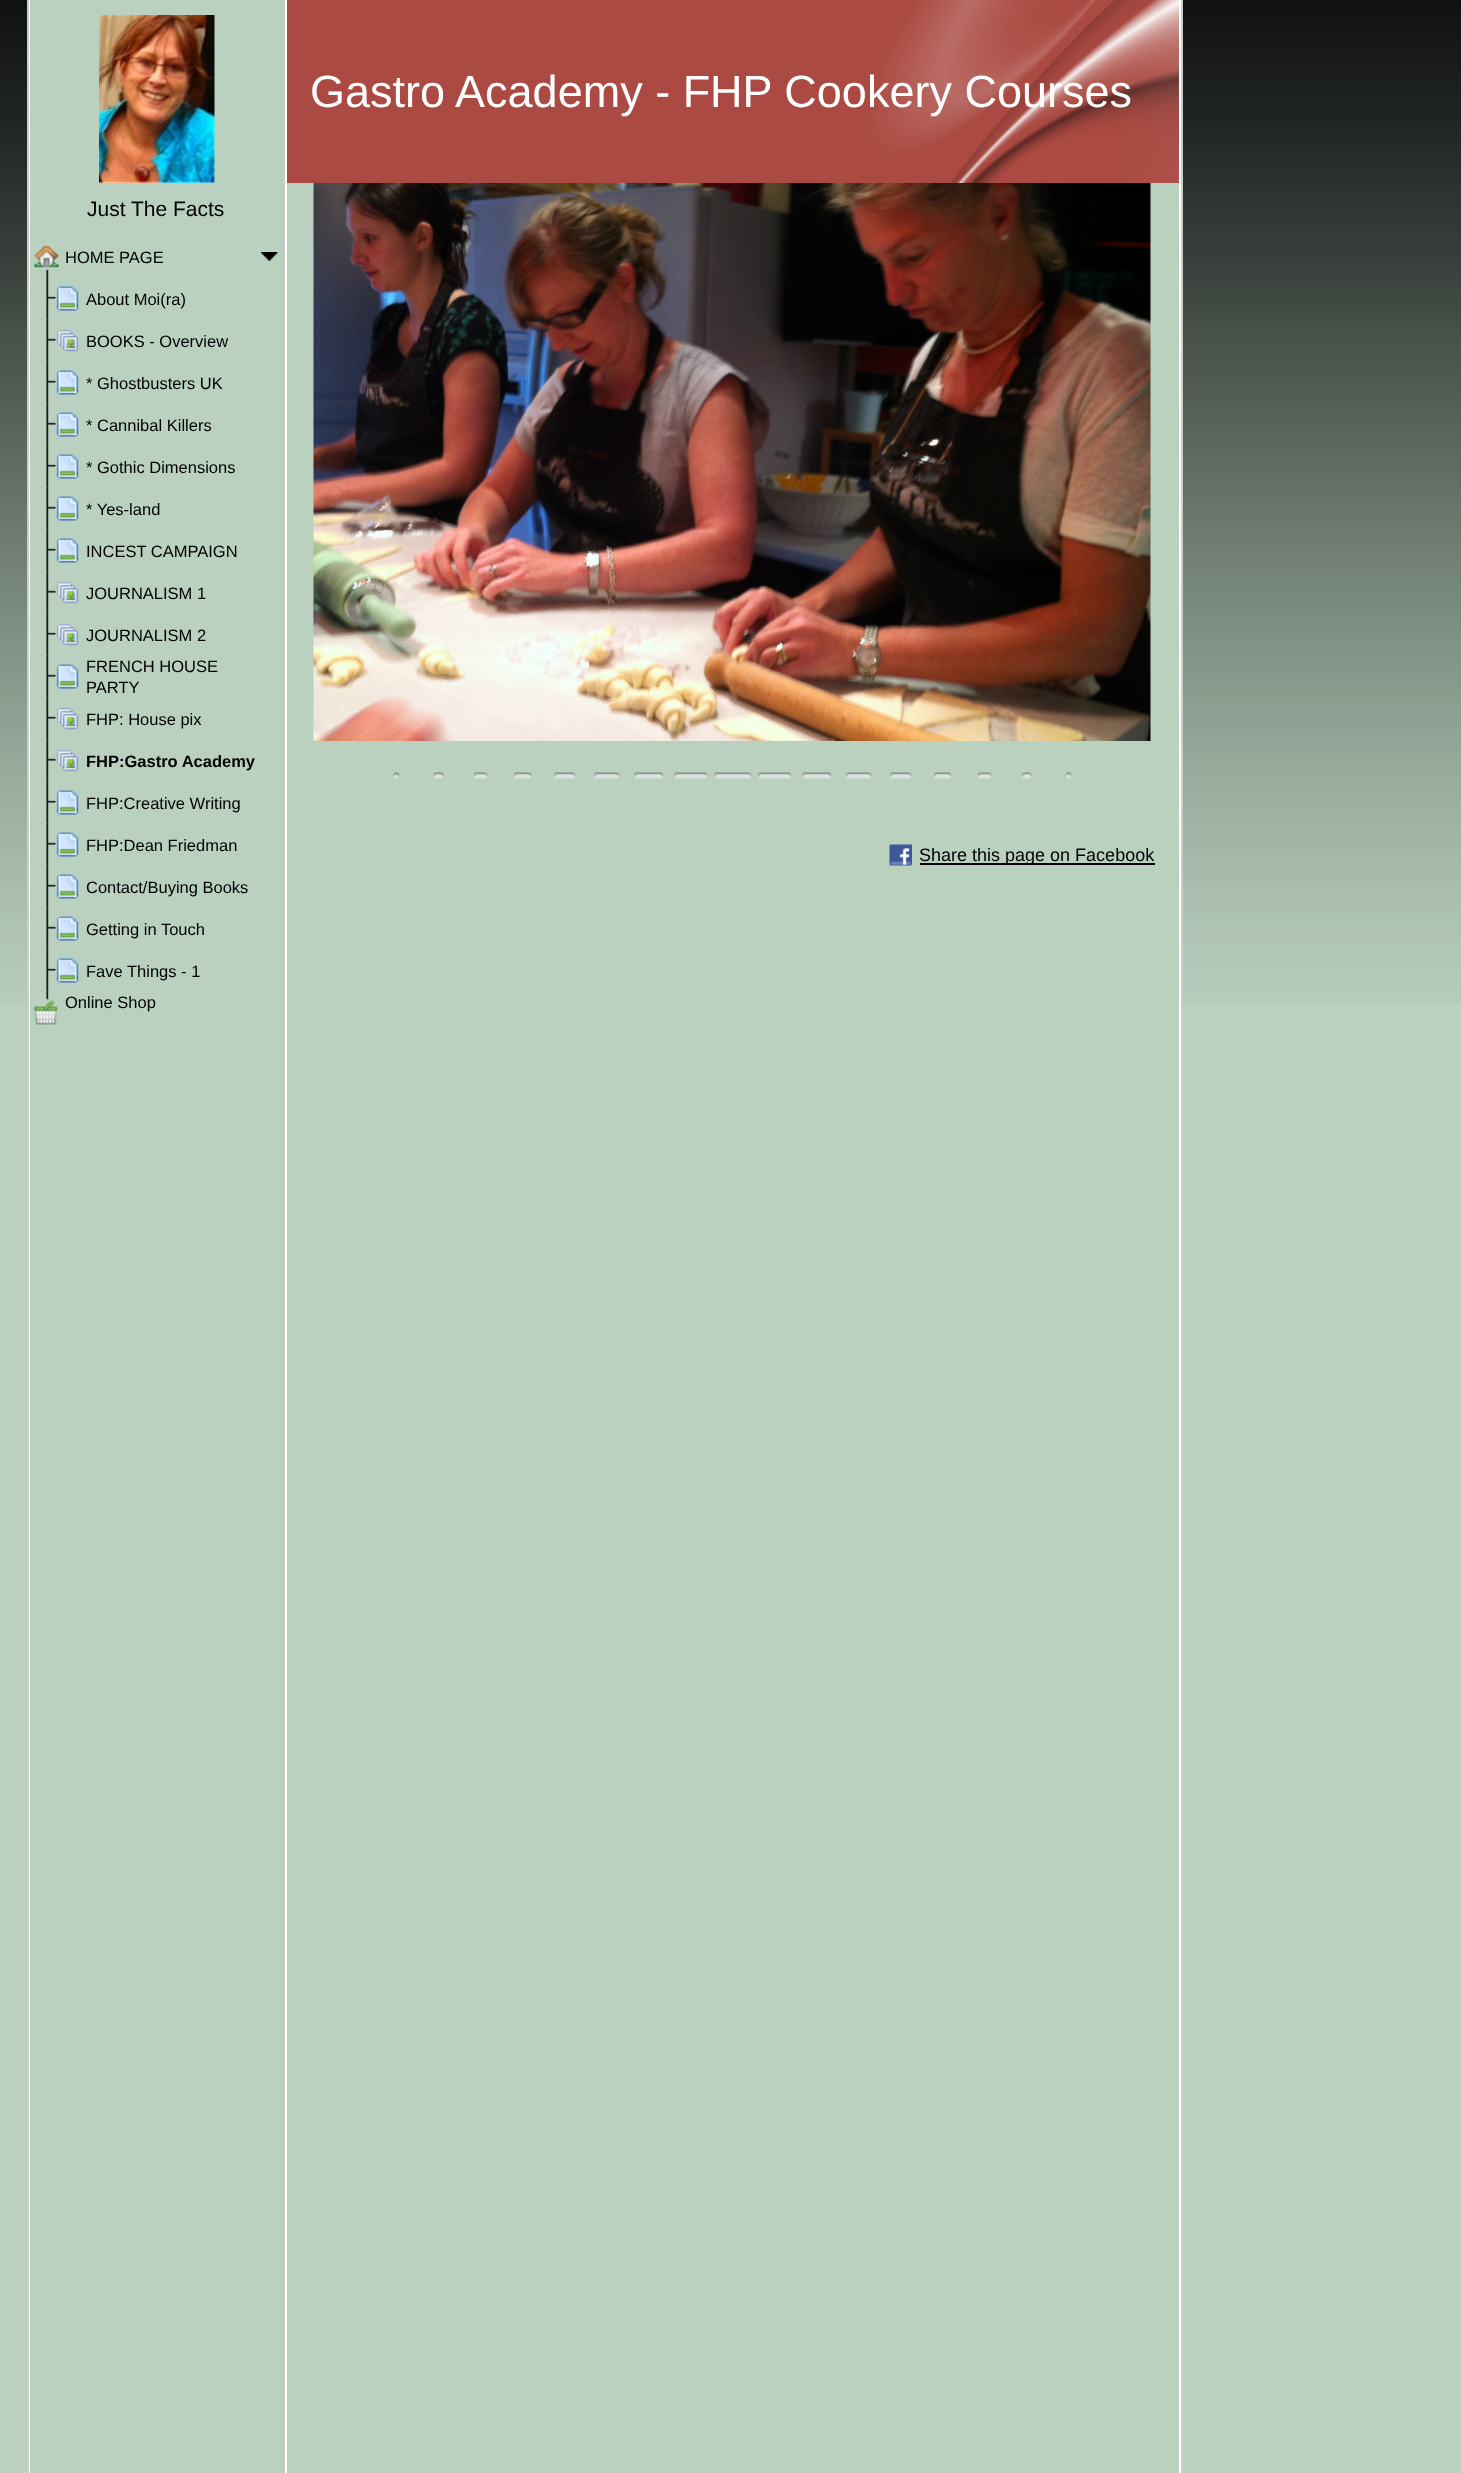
(async () => {
const canvas = document.querySelector("canvas")
canvas.width = 1461
canvas.height = 2473
const c = canvas.getContext("2d")
c.miterLimit = 4
c.fontKerning = "normal"
function T(s,x,y){c.fillText(s,x,y)}
function R(x,y,w,h){c.fillRect(x,y,w,h)}
async function I(src,x,y,w,h){const img=new Image();img.src=src;await img.decode();c.drawImage(img,x,y,w,h)}
c.fillStyle="#bad1c0"
R(0,0,1461,2473)
await I("1.png",0,0,1461,1004)
c.fillStyle="#fff"
R(29,0,1152,2473)
c.fillStyle="#ccc"
R(27,0,2,2473)
c.fillStyle="#bad1c0"
R(30,0,254,2473)
await I("2.png",99,15,116,168)
c.font="21px Liberation Sans"
c.fillStyle="#000"
T("Just The Facts",87,216)
await I("3.png",46,269,3,9)
await I("4.png",34,245,25,23)
await I("5.png",261,252,17,9)
c.font="16.5px Liberation Sans"
T("HOME PAGE",65,263)
await I("6.png",46,277,10,43)
await I("7.png",56,286,23,25)
T("About Moi(ra)",86,305)
await I("6.png",46,319,10,43)
await I("8.png",56,329,23,23)
T("BOOKS - Overview",86,347)
await I("6.png",46,361,10,43)
await I("7.png",56,370,23,25)
T("* Ghostbusters UK",86,389)
await I("6.png",46,403,10,43)
await I("7.png",56,412,23,25)
T("* Cannibal Killers",86,431)
await I("6.png",46,445,10,43)
await I("7.png",56,454,23,25)
T("* Gothic Dimensions",86,473)
await I("6.png",46,487,10,43)
await I("7.png",56,496,23,25)
T("* Yes-land",86,515)
await I("6.png",46,529,10,43)
await I("7.png",56,538,23,25)
T("INCEST CAMPAIGN",86,557)
await I("6.png",46,571,10,43)
await I("8.png",56,581,23,23)
T("JOURNALISM 1",86,599)
await I("6.png",46,613,10,43)
await I("8.png",56,623,23,23)
T("JOURNALISM 2",86,641)
await I("6.png",46,655,10,43)
await I("7.png",56,664,23,25)
T("FRENCH HOUSE",86,672)
T("PARTY",86,693)
await I("6.png",46,697,10,43)
await I("8.png",56,707,23,23)
T("FHP: House pix",86,725)
await I("6.png",46,739,10,43)
await I("8.png",56,749,23,23)
c.font="bold 16.5px Liberation Sans"
T("FHP:Gastro Academy",86,767)
await I("6.png",46,781,10,43)
await I("7.png",56,790,23,25)
c.font="16.5px Liberation Sans"
T("FHP:Creative Writing",86,809)
await I("6.png",46,823,10,43)
await I("7.png",56,832,23,25)
T("FHP:Dean Friedman",86,851)
await I("6.png",46,865,10,43)
await I("7.png",56,874,23,25)
T("Contact/Buying Books",86,893)
await I("6.png",46,907,10,43)
await I("7.png",56,916,23,25)
T("Getting in Touch",86,935)
await I("6.png",46,949,10,43)
await I("7.png",56,958,23,25)
T("Fave Things - 1",86,977)
await I("9.png",46,991,3,9)
await I("10.png",34,1000,24,25)
T("Online Shop",65,1008)
c.fillStyle="#ccc"
R(284,0,1,2473)
c.fillStyle="#bad1c0"
R(287,183,892,2290)
c.fillStyle="#aa4a42"
R(287,0,892,183)
await I("11.png",871,0,308,183)
c.font="45px Liberation Sans"
c.fillStyle="#fff"
T("Gastro Academy - FHP Cookery Courses",310,107)
await I("12.png",313,183,838,558)
await I("13.png",393,772,680,7)
await I("14.png",889,844,23,22)
c.fillStyle="#000"
R(920,863,235,2)
c.font="18px Liberation Sans"
T("Share this page on Facebook",919,861)
c.fillStyle="#ccc"
R(1181,0,2,2473)
})()
